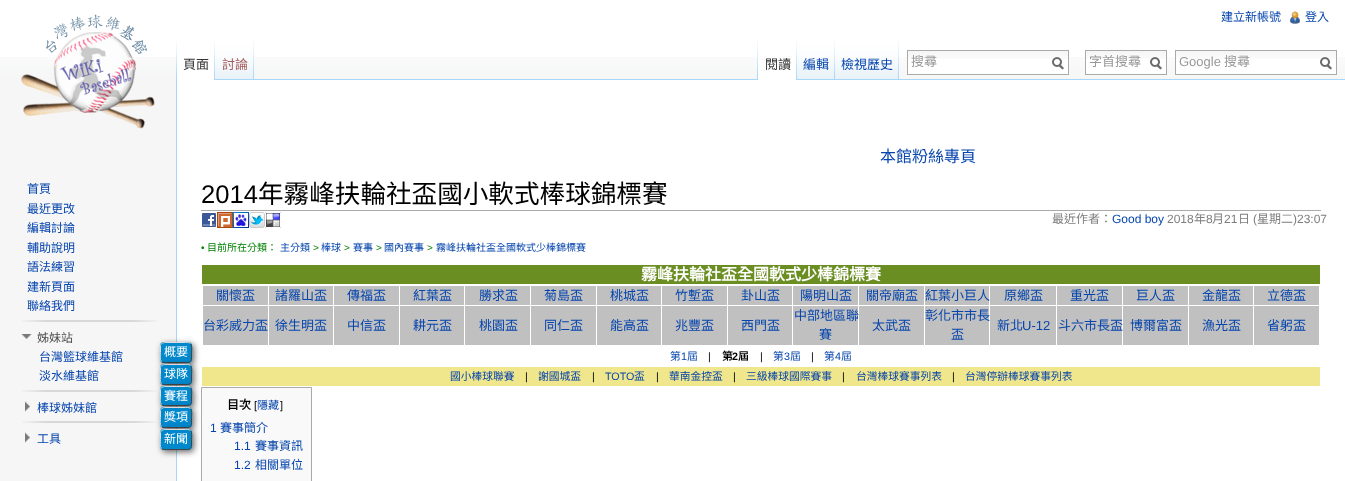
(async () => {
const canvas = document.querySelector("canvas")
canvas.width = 1345
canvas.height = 481
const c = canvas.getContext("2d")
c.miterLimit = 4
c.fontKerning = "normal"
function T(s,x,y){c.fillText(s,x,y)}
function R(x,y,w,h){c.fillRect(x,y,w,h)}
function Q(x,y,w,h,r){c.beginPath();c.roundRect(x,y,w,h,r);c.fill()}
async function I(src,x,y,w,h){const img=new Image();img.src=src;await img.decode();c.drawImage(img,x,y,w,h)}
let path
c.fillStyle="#f6f6f6"
R(0,0,1345,481)
c.fillStyle="#fff"
R(0,0,1345,57)
await I("1.png",0,57,1345,23)
c.font="12px Noto Sans CJK TC"
c.fillStyle="#0645ad"
T("建立新帳號",1221,21)
await I("2.png",1290,11,10,13)
T("登入",1305,21)
await I("3.png",176,40,1,39)
c.fillStyle="#fff"
R(177,57,37,23)
await I("4.png",214,40,1,40)
c.font="13px Noto Sans CJK TC"
c.fillStyle="#333"
T("頁面",183,69)
await I("5.png",215,40,39,40)
await I("6.png",253,40,1,39)
c.fillStyle="#a55858"
T("討論",222,69)
await I("3.png",757,40,1,39)
c.fillStyle="#a7d7f9"
R(254,79,1091,1)
c.fillStyle="#fff"
R(758,57,38,23)
await I("4.png",796,40,1,40)
c.fillStyle="#333"
T("閱讀",765,69)
await I("7.png",797,40,38,40)
await I("6.png",834,40,1,39)
c.fillStyle="#0645ad"
T("編輯",803,69)
await I("8.png",835,40,64,40)
await I("6.png",898,40,1,39)
T("檢視歷史",841,69)
c.fillStyle="#fff"
R(908,59,160,15)
await I("9.png",908,51,160,8)
c.strokeStyle="#aaa"
c.strokeRect(907.5,50.5,161,24)
c.fillStyle="#999"
T("搜尋",911,66)
await I("10.png",1052,57,12,13)
c.fillStyle="#fff"
R(1086,59,80,15)
await I("11.png",1086,51,80,8)
c.strokeRect(1085.5,50.5,81,24)
c.fillStyle="#999"
T("字首搜尋",1089,66)
await I("10.png",1150,57,12,13)
c.fillStyle="#fff"
R(1176,59,160,15)
await I("9.png",1176,51,160,8)
c.strokeRect(1175.5,50.5,161,24)
c.font="13px Liberation Sans"
c.fillStyle="#999"
T("Google",1179,66)
c.font="13px Noto Sans CJK TC"
T("搜尋",1224,66)
await I("10.png",1320,57,12,13)
await I("12.png",21,14,134,115)
c.font="12px Noto Sans CJK TC"
c.fillStyle="#0645ad"
T("首頁",27,193)
T("最近更改",27,213)
T("編輯討論",27,232)
T("輔助說明",27,252)
T("語法練習",27,271)
T("建新頁面",27,291)
T("聯絡我們",27,310)
await I("13.png",22,320,135,2)
await I("14.png",21,334,11,5)
c.fillStyle="#4d4d4d"
T("姊妹站",37,342)
c.fillStyle="#0645ad"
T("台灣籃球維基館",39,361)
T("淡水維基館",39,380)
await I("13.png",22,390,135,2)
await I("15.png",25,401,5,11)
T("棒球姊妹館",37,412)
await I("13.png",22,421,135,2)
await I("15.png",25,432,5,11)
T("工具",37,443)
c.fillStyle="#fff"
R(177,80,1168,401)
c.fillStyle="#a7d7f9"
R(176,79,1,402)
c.font="16px Noto Sans CJK TC"
c.fillStyle="#0645ad"
T("本館粉絲專頁",880,162)
c.fillStyle="#aaa"
R(201,210,1120,1)
c.font="25.6px Liberation Sans"
c.fillStyle="#000"
T("2014",201,203)
c.font="25.6px Noto Sans CJK TC"
T("年霧峰扶輪社盃國小軟式棒球錦標賽",258,203)
await I("16.png",202,213,14,14)
await I("17.png",217,212,16,16)
await I("18.png",233,212,16,16)
await I("19.png",249,212,16,16)
await I("20.png",265,212,16,16)
c.font="12px Noto Sans CJK TC"
c.fillStyle="#7d7d7d"
T("最近作者：",1052,223)
c.font="12px Liberation Sans"
c.fillStyle="#0645ad"
T("Good boy",1112,223)
c.fillStyle="#7d7d7d"
T("2018",1167,223)
c.font="12px Noto Sans CJK TC"
T("年",1194,223)
c.font="12px Liberation Sans"
T("8",1206,223)
c.font="12px Noto Sans CJK TC"
T("月",1212,223)
c.font="12px Liberation Sans"
T("21",1224,223)
c.font="12px Noto Sans CJK TC"
T("日",1238,223)
c.font="12px Liberation Sans"
T("(",1253,223)
c.font="12px Noto Sans CJK TC"
T("星期二",1257,223)
c.font="12px Liberation Sans"
T(")23:07",1293,223)
c.font="10px Liberation Sans"
c.fillStyle="#008000"
T("•",201,251)
c.font="10px Noto Sans CJK TC"
T("目前所在分類：",207,251)
c.fillStyle="#0645ad"
T("主分類",280,251)
c.font="10px Liberation Sans"
c.fillStyle="#008000"
T(">",313,251)
c.font="10px Noto Sans CJK TC"
c.fillStyle="#0645ad"
T("棒球",321,251)
c.font="10px Liberation Sans"
c.fillStyle="#008000"
T(">",344,251)
c.font="10px Noto Sans CJK TC"
c.fillStyle="#0645ad"
T("賽事",353,251)
c.font="10px Liberation Sans"
c.fillStyle="#008000"
T(">",376,251)
c.font="10px Noto Sans CJK TC"
c.fillStyle="#0645ad"
T("國內賽事",384,251)
c.font="10px Liberation Sans"
c.fillStyle="#008000"
T(">",427,251)
c.font="10px Noto Sans CJK TC"
c.fillStyle="#0645ad"
T("霧峰扶輪社盃全國軟式少棒錦標賽",436,251)
c.fillStyle="#6b8e23"
R(202,265,1118,19)
c.font="bold 16px Noto Sans CJK TC"
c.fillStyle="#fff"
T("霧峰扶輪社盃全國軟式少棒錦標賽",641,280)
c.fillStyle="#c0c0c0"
R(203,286,65,19)
c.font="13px Noto Sans CJK TC"
c.fillStyle="#0645ad"
T("關懷盃",216,300)
c.fillStyle="#c0c0c0"
R(269,286,64,19)
c.fillStyle="#0645ad"
T("諸羅山盃",275,300)
c.fillStyle="#c0c0c0"
R(334,286,65,19)
c.fillStyle="#0645ad"
T("傳福盃",347,300)
c.fillStyle="#c0c0c0"
R(400,286,64,19)
c.fillStyle="#0645ad"
T("紅葉盃",413,300)
c.fillStyle="#c0c0c0"
R(465,286,65,19)
c.fillStyle="#0645ad"
T("勝求盃",479,300)
c.fillStyle="#c0c0c0"
R(531,286,65,19)
c.fillStyle="#0645ad"
T("菊島盃",544,300)
c.fillStyle="#c0c0c0"
R(597,286,64,19)
c.fillStyle="#0645ad"
T("桃城盃",610,300)
c.fillStyle="#c0c0c0"
R(662,286,65,19)
c.fillStyle="#0645ad"
T("竹塹盃",675,300)
c.fillStyle="#c0c0c0"
R(728,286,64,19)
c.fillStyle="#0645ad"
T("卦山盃",741,300)
c.fillStyle="#c0c0c0"
R(793,286,65,19)
c.fillStyle="#0645ad"
T("陽明山盃",800,300)
c.fillStyle="#c0c0c0"
R(859,286,65,19)
c.fillStyle="#0645ad"
T("關帝廟盃",866,300)
c.fillStyle="#c0c0c0"
R(925,286,64,19)
c.fillStyle="#0645ad"
T("紅葉小巨人",925,300)
c.fillStyle="#c0c0c0"
R(990,286,66,19)
c.fillStyle="#0645ad"
T("原鄉盃",1004,300)
c.fillStyle="#c0c0c0"
R(1057,286,65,19)
c.fillStyle="#0645ad"
T("重光盃",1070,300)
c.fillStyle="#c0c0c0"
R(1123,286,65,19)
c.fillStyle="#0645ad"
T("巨人盃",1136,300)
c.fillStyle="#c0c0c0"
R(1189,286,64,19)
c.fillStyle="#0645ad"
T("金龍盃",1202,300)
c.fillStyle="#c0c0c0"
R(1254,286,65,19)
c.fillStyle="#0645ad"
T("立德盃",1267,300)
c.fillStyle="#c0c0c0"
R(203,306,65,39)
c.fillStyle="#0645ad"
T("台彩威力盃",203,330)
c.fillStyle="#c0c0c0"
R(269,306,64,39)
c.fillStyle="#0645ad"
T("徐生明盃",275,330)
c.fillStyle="#c0c0c0"
R(334,306,65,39)
c.fillStyle="#0645ad"
T("中信盃",347,330)
c.fillStyle="#c0c0c0"
R(400,306,64,39)
c.fillStyle="#0645ad"
T("耕元盃",413,330)
c.fillStyle="#c0c0c0"
R(465,306,65,39)
c.fillStyle="#0645ad"
T("桃園盃",479,330)
c.fillStyle="#c0c0c0"
R(531,306,65,39)
c.fillStyle="#0645ad"
T("同仁盃",544,330)
c.fillStyle="#c0c0c0"
R(597,306,64,39)
c.fillStyle="#0645ad"
T("能高盃",610,330)
c.fillStyle="#c0c0c0"
R(662,306,65,39)
c.fillStyle="#0645ad"
T("兆豐盃",675,330)
c.fillStyle="#c0c0c0"
R(728,306,64,39)
c.fillStyle="#0645ad"
T("西門盃",741,330)
c.fillStyle="#c0c0c0"
R(793,306,65,39)
c.fillStyle="#0645ad"
T("中部地區聯",794,320)
T("賽",819,339)
c.fillStyle="#c0c0c0"
R(859,306,65,39)
c.fillStyle="#0645ad"
T("太武盃",872,330)
c.fillStyle="#c0c0c0"
R(925,306,64,39)
c.fillStyle="#0645ad"
T("彰化市市長",925,320)
T("盃",951,339)
c.fillStyle="#c0c0c0"
R(990,306,66,39)
c.fillStyle="#0645ad"
T("新北",997,330)
c.font="13px Liberation Sans"
T("U-12",1022,330)
c.fillStyle="#c0c0c0"
R(1057,306,65,39)
c.font="13px Noto Sans CJK TC"
c.fillStyle="#0645ad"
T("斗六市長盃",1058,330)
c.fillStyle="#c0c0c0"
R(1123,306,65,39)
c.fillStyle="#0645ad"
T("博爾富盃",1130,330)
c.fillStyle="#c0c0c0"
R(1189,306,64,39)
c.fillStyle="#0645ad"
T("漁光盃",1202,330)
c.fillStyle="#c0c0c0"
R(1254,306,65,39)
c.fillStyle="#0645ad"
T("省躬盃",1267,330)
c.font="10.75px Noto Sans CJK TC"
T("第",670,360)
c.font="10.75px Liberation Sans"
T("1",681,360)
c.font="10.75px Noto Sans CJK TC"
T("屆",687,360)
c.font="10.75px Liberation Sans"
c.fillStyle="#000"
T("|",708,360)
c.font="bold 10.75px Noto Sans CJK TC"
T("第",722,360)
c.font="bold 10.75px Liberation Sans"
T("2",732,360)
c.font="bold 10.75px Noto Sans CJK TC"
T("屆",738,360)
c.font="10.75px Liberation Sans"
T("|",760,360)
c.font="10.75px Noto Sans CJK TC"
c.fillStyle="#0645ad"
T("第",773,360)
c.font="10.75px Liberation Sans"
T("3",784,360)
c.font="10.75px Noto Sans CJK TC"
T("屆",790,360)
c.font="10.75px Liberation Sans"
c.fillStyle="#000"
T("|",811,360)
c.font="10.75px Noto Sans CJK TC"
c.fillStyle="#0645ad"
T("第",824,360)
c.font="10.75px Liberation Sans"
T("4",835,360)
c.font="10.75px Noto Sans CJK TC"
T("屆",841,360)
c.fillStyle="#f0e68c"
R(202,367,1118,19)
c.fillStyle="#0645ad"
T("國小棒球聯賽",450,380)
c.font="10.75px Liberation Sans"
c.fillStyle="#000"
T("|",525,380)
c.font="10.75px Noto Sans CJK TC"
c.fillStyle="#0645ad"
T("謝國城盃",538,380)
c.font="10.75px Liberation Sans"
c.fillStyle="#000"
T("|",592,380)
c.fillStyle="#0645ad"
T("TOTO",605,380)
c.font="10.75px Noto Sans CJK TC"
T("盃",634,380)
c.font="10.75px Liberation Sans"
c.fillStyle="#000"
T("|",656,380)
c.font="10.75px Noto Sans CJK TC"
c.fillStyle="#0645ad"
T("華南金控盃",669,380)
c.font="10.75px Liberation Sans"
c.fillStyle="#000"
T("|",733,380)
c.font="10.75px Noto Sans CJK TC"
c.fillStyle="#0645ad"
T("三級棒球國際賽事",746,380)
c.font="10.75px Liberation Sans"
c.fillStyle="#000"
T("|",842,380)
c.font="10.75px Noto Sans CJK TC"
c.fillStyle="#0645ad"
T("台灣棒球賽事列表",856,380)
c.font="10.75px Liberation Sans"
c.fillStyle="#000"
T("|",952,380)
c.font="10.75px Noto Sans CJK TC"
c.fillStyle="#0645ad"
T("台灣停辦棒球賽事列表",965,380)
c.fillStyle="#00000099"
c.filter="blur(3px)"
c.beginPath()
c.roundRect(162,344,32,21,4)
c.fill()
c.filter="none"
c.fillStyle="#08c"
Q(160,342,32,21,4)
path = new Path2D("M190.5 343.5c2 2 1 6.5 1 9v7c-1 3.5-5 3-7.5 3h-16c-2 0-5 .5-6.5-1")
c.strokeStyle="#444"
c.stroke(path)
path = new Path2D("M161.5 361.5c-2-2-1-6.5-1-9v-7c1-3.5 5-3 7.5-3h16c2 0 5-.5 6.5 1")
c.strokeStyle="#ddd"
c.stroke(path)
c.font="12px Noto Sans CJK TC"
c.fillStyle="#fff"
T("概要",164,356)
c.fillStyle="#f9f9f9"
c.beginPath()
c.rect(201.5,387.5,110,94)
c.fill()
c.strokeStyle="#aaa"
c.stroke()
c.fillStyle="#00000099"
c.filter="blur(3px)"
c.beginPath()
c.roundRect(162,366,32,21,4)
c.fill()
c.filter="none"
c.fillStyle="#08c"
Q(160,364,32,21,4)
path = new Path2D("M190.5 365.5c2 2 1 6.5 1 9v7c-1 3.5-5 3-7.5 3h-16c-2 0-5 .5-6.5-1")
c.strokeStyle="#444"
c.stroke(path)
path = new Path2D("M161.5 383.5c-2-2-1-6.5-1-9v-7c1-3.5 5-3 7.5-3h16c2 0 5-.5 6.5 1")
c.strokeStyle="#ddd"
c.stroke(path)
c.fillStyle="#fff"
T("球隊",164,378)
c.fillStyle="#00000099"
c.filter="blur(3px)"
c.beginPath()
c.roundRect(162,388,32,20,4)
c.fill()
c.filter="none"
c.fillStyle="#08c"
Q(160,386,32,20,4)
path = new Path2D("M190.5 387.5c2 2 1 6.5 1 8.5v6.5c-1 3.5-5 3-7.5 3h-16c-2 0-5 .5-6.5-1")
c.strokeStyle="#444"
c.stroke(path)
path = new Path2D("M161.5 404.5c-2-2-1-6.5-1-8.5v-6.5c1-3.5 5-3 7.5-3h16c2 0 5-.5 6.5 1")
c.strokeStyle="#ddd"
c.stroke(path)
c.fillStyle="#fff"
T("賽程",164,400)
c.fillStyle="#00000099"
c.filter="blur(3px)"
c.beginPath()
c.roundRect(162,409,32,21,4)
c.fill()
c.filter="none"
c.fillStyle="#08c"
Q(160,407,32,21,4)
path = new Path2D("M190.5 408.5c2 2 1 6.5 1 9v7c-1 3.5-5 3-7.5 3h-16c-2 0-5 .5-6.5-1")
c.strokeStyle="#444"
c.stroke(path)
path = new Path2D("M161.5 426.5c-2-2-1-6.5-1-9v-7c1-3.5 5-3 7.5-3h16c2 0 5-.5 6.5 1")
c.strokeStyle="#ddd"
c.stroke(path)
c.fillStyle="#fff"
T("獎項",164,421)
c.fillStyle="#00000099"
c.filter="blur(3px)"
c.beginPath()
c.roundRect(162,431,32,21,4)
c.fill()
c.filter="none"
c.fillStyle="#08c"
Q(160,429,32,21,4)
path = new Path2D("M190.5 430.5c2 2 1 6.5 1 9v7c-1 3.5-5 3-7.5 3h-16c-2 0-5 .5-6.5-1")
c.strokeStyle="#444"
c.stroke(path)
path = new Path2D("M161.5 448.5c-2-2-1-6.5-1-9v-7c1-3.5 5-3 7.5-3h16c2 0 5-.5 6.5 1")
c.strokeStyle="#ddd"
c.stroke(path)
c.fillStyle="#fff"
T("新聞",164,443)
c.font="bold 12px Noto Sans CJK TC"
c.fillStyle="#000"
T("目次",227,409)
c.font="11px Liberation Sans"
T("[",254,409)
c.font="11px Noto Sans CJK TC"
c.fillStyle="#0645ad"
T("隱藏",257,409)
c.font="11px Liberation Sans"
c.fillStyle="#000"
T("]",280,409)
c.font="12px Liberation Sans"
c.fillStyle="#0645ad"
T("1",210,432)
c.font="12px Noto Sans CJK TC"
T("賽事簡介",220,432)
c.font="12px Liberation Sans"
T("1.1",234,450)
c.font="12px Noto Sans CJK TC"
T("賽事資訊",255,450)
c.font="12px Liberation Sans"
T("1.2",234,469)
c.font="12px Noto Sans CJK TC"
T("相關單位",255,469)
})()
